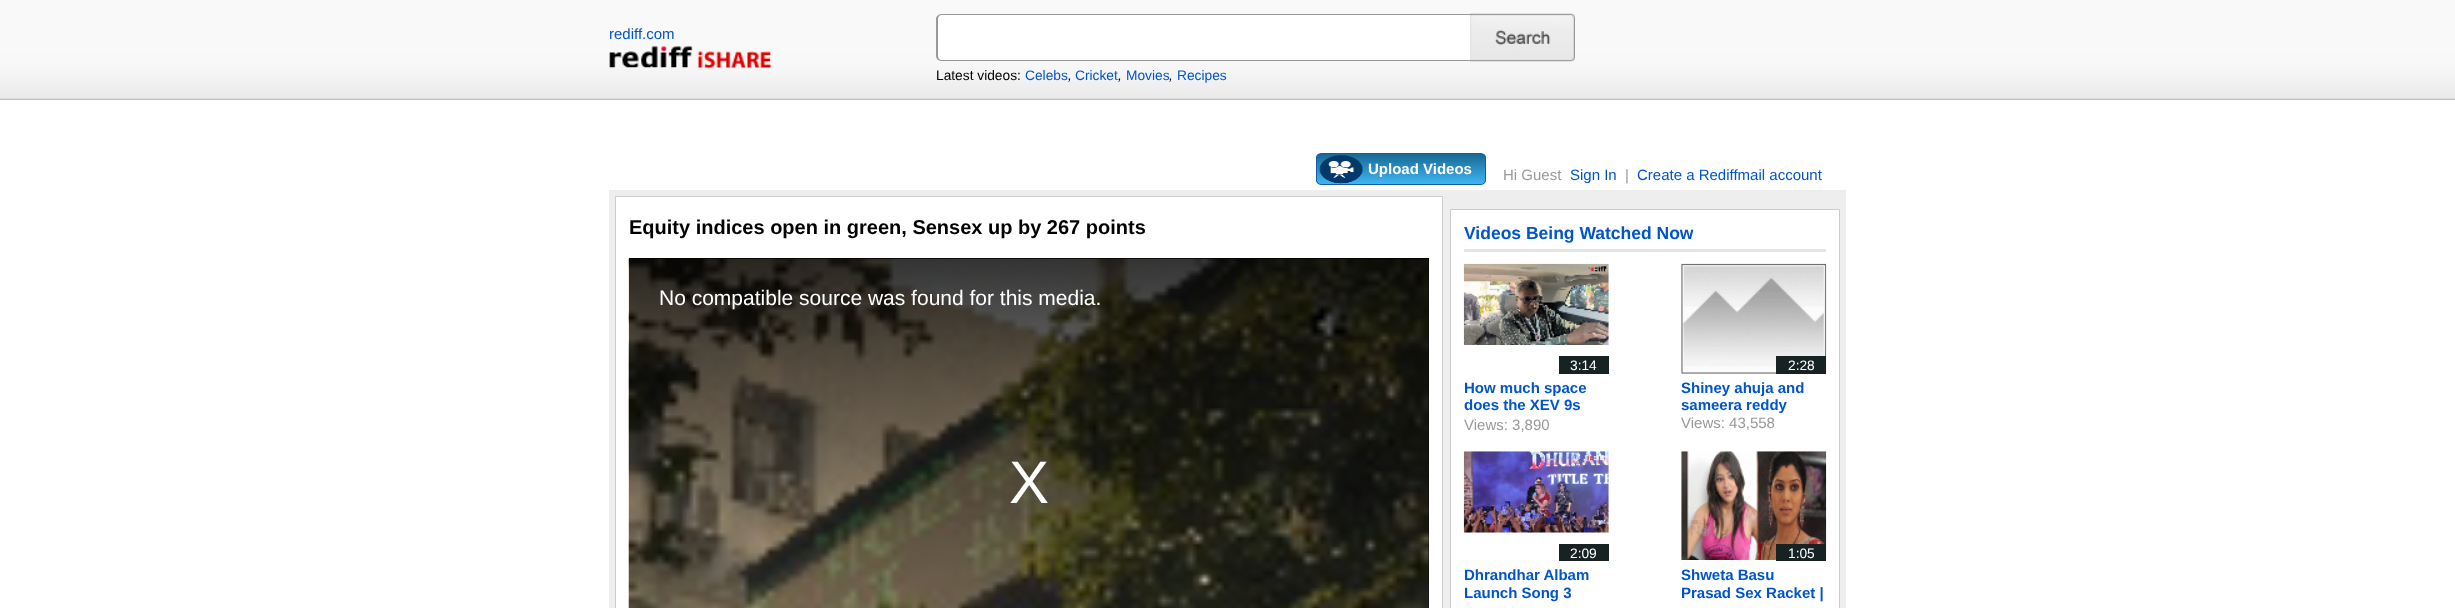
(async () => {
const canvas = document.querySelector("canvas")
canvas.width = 2455
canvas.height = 608
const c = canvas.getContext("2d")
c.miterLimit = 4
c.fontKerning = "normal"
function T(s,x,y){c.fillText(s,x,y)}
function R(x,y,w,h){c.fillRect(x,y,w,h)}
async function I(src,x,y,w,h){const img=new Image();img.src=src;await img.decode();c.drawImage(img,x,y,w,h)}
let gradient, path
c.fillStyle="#fff"
R(0,0,2455,608)
await I("1.png",0,0,2455,100)
c.font="15px Liberation Sans"
c.fillStyle="#05c"
T("rediff.com",609,39)
await I("2.png",609,46,84,22)
await I("3.png",697,51,75,18)
c.fillStyle="#fff"
c.beginPath()
c.roundRect(936,14,535,47,[5,0,0,5])
c.fill()
c.fillStyle="#999"
path = new Path2D("M942 14h529v47h-529c-3 0-6-2-6-5v-37c0-3 3-5 6-5zm0 1h529v45h-529c-3 0-4-2-4-4v-37c0-2 1-4 4-4z")
c.fill(path,"evenodd")
await I("4.png",1470,13,105,49)
c.font="13.75px Liberation Sans"
c.fillStyle="#000"
T("Latest videos:",936,80)
c.fillStyle="#05c"
T("Celebs",1025,80)
c.font="italic 13.75px Liberation Sans"
c.fillStyle="#000"
T(",",1068,80)
c.font="13.75px Liberation Sans"
c.fillStyle="#05c"
T("Cricket",1075,80)
c.font="italic 13.75px Liberation Sans"
c.fillStyle="#000"
T(",",1118,80)
c.font="13.75px Liberation Sans"
c.fillStyle="#05c"
T("Movies",1126,80)
c.font="italic 13.75px Liberation Sans"
c.fillStyle="#000"
T(",",1169,80)
c.font="13.75px Liberation Sans"
c.fillStyle="#05c"
T("Recipes",1177,80)
c.save()
c.beginPath()
c.roundRect(1316,153,170,32,5)
c.clip()
gradient = c.createLinearGradient(1401,154,1401,184)
gradient.addColorStop(0,"#176994")
gradient.addColorStop(1,"#3fb5f2")
c.fillStyle = gradient
R(1316,154,170,30)
c.restore()
c.beginPath()
c.roundRect(1316.5,153.5,169,31,4.5)
c.strokeStyle="#185ca8"
c.stroke()
await I("5.png",1319,155,44,29)
c.font="bold 15px Liberation Sans"
c.fillStyle="#fff"
T("Upload Videos",1368,174)
c.font="15px Liberation Sans"
c.fillStyle="#999"
T("Hi Guest",1503,180)
c.fillStyle="#05c"
T("Sign In",1570,180)
c.fillStyle="#999"
T("|",1625,180)
c.fillStyle="#05c"
T("Create a Rediffmail account",1637,180)
c.fillStyle="#eee"
R(609,190,1237,418)
c.fillStyle="#fff"
c.beginPath()
c.rect(615.5,196.5,827,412)
c.fill()
c.strokeStyle="#ccc"
c.stroke()
c.font="bold 20px Liberation Sans"
c.fillStyle="#000"
T("Equity indices open in green, Sensex up by 267 points",629,234)
R(629,258,800,350)
await I("7.png",628,259,1,349)
await I("6.png",628,258,801,350)
gradient = c.createLinearGradient(1029,257,1029,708)
gradient.addColorStop(0,"#000000cc")
gradient.addColorStop(1,"#00000000")
c.fillStyle = gradient
R(629,258,800,350)
c.font="21px Liberation Sans"
c.fillStyle="#fff"
T("No compatible source was found for this media.",659,305)
c.font="60px Liberation Sans"
T("X",1009,503)
c.beginPath()
c.rect(1450.5,209.5,389,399)
c.fill()
c.stroke()
c.font="bold 17.5px Liberation Sans"
c.fillStyle="#05c"
T("Videos Being Watched Now",1464,239)
c.fillStyle="#e5e5e5"
R(1464,249,362,3)
await I("8.png",1463,263,146,82)
c.fillStyle="#172223"
R(1559,356,50,18)
c.font="13.75px Liberation Sans"
c.fillStyle="#fff"
T("3:14",1570,370)
c.font="bold 15px Liberation Sans"
c.fillStyle="#05c"
T("How much space",1464,393)
T("does the XEV 9s",1464,410)
c.font="15px Liberation Sans"
c.fillStyle="#999"
T("Views: 3,890",1464,430)
await I("9.png",1681,263,146,111)
c.fillStyle="#172223"
R(1776,356,50,18)
c.font="13.75px Liberation Sans"
c.fillStyle="#fff"
T("2:28",1788,370)
c.font="bold 15px Liberation Sans"
c.fillStyle="#05c"
T("Shiney ahuja and",1681,393)
T("sameera reddy",1681,410)
c.font="15px Liberation Sans"
c.fillStyle="#999"
T("Views: 43,558",1681,428)
await I("10.png",1463,451,146,82)
c.fillStyle="#172223"
R(1559,544,50,17)
c.font="13.75px Liberation Sans"
c.fillStyle="#fff"
T("2:09",1570,558)
c.font="bold 15px Liberation Sans"
c.fillStyle="#05c"
T("Dhrandhar Albam",1464,580)
T("Launch Song 3",1464,598)
await I("11.png",1681,451,146,109)
c.fillStyle="#172223"
R(1776,544,50,17)
c.font="13.75px Liberation Sans"
c.fillStyle="#fff"
T("1:05",1788,558)
c.font="bold 15px Liberation Sans"
c.fillStyle="#05c"
T("Shweta Basu",1681,580)
T("Prasad Sex Racket |",1681,598)
})()
